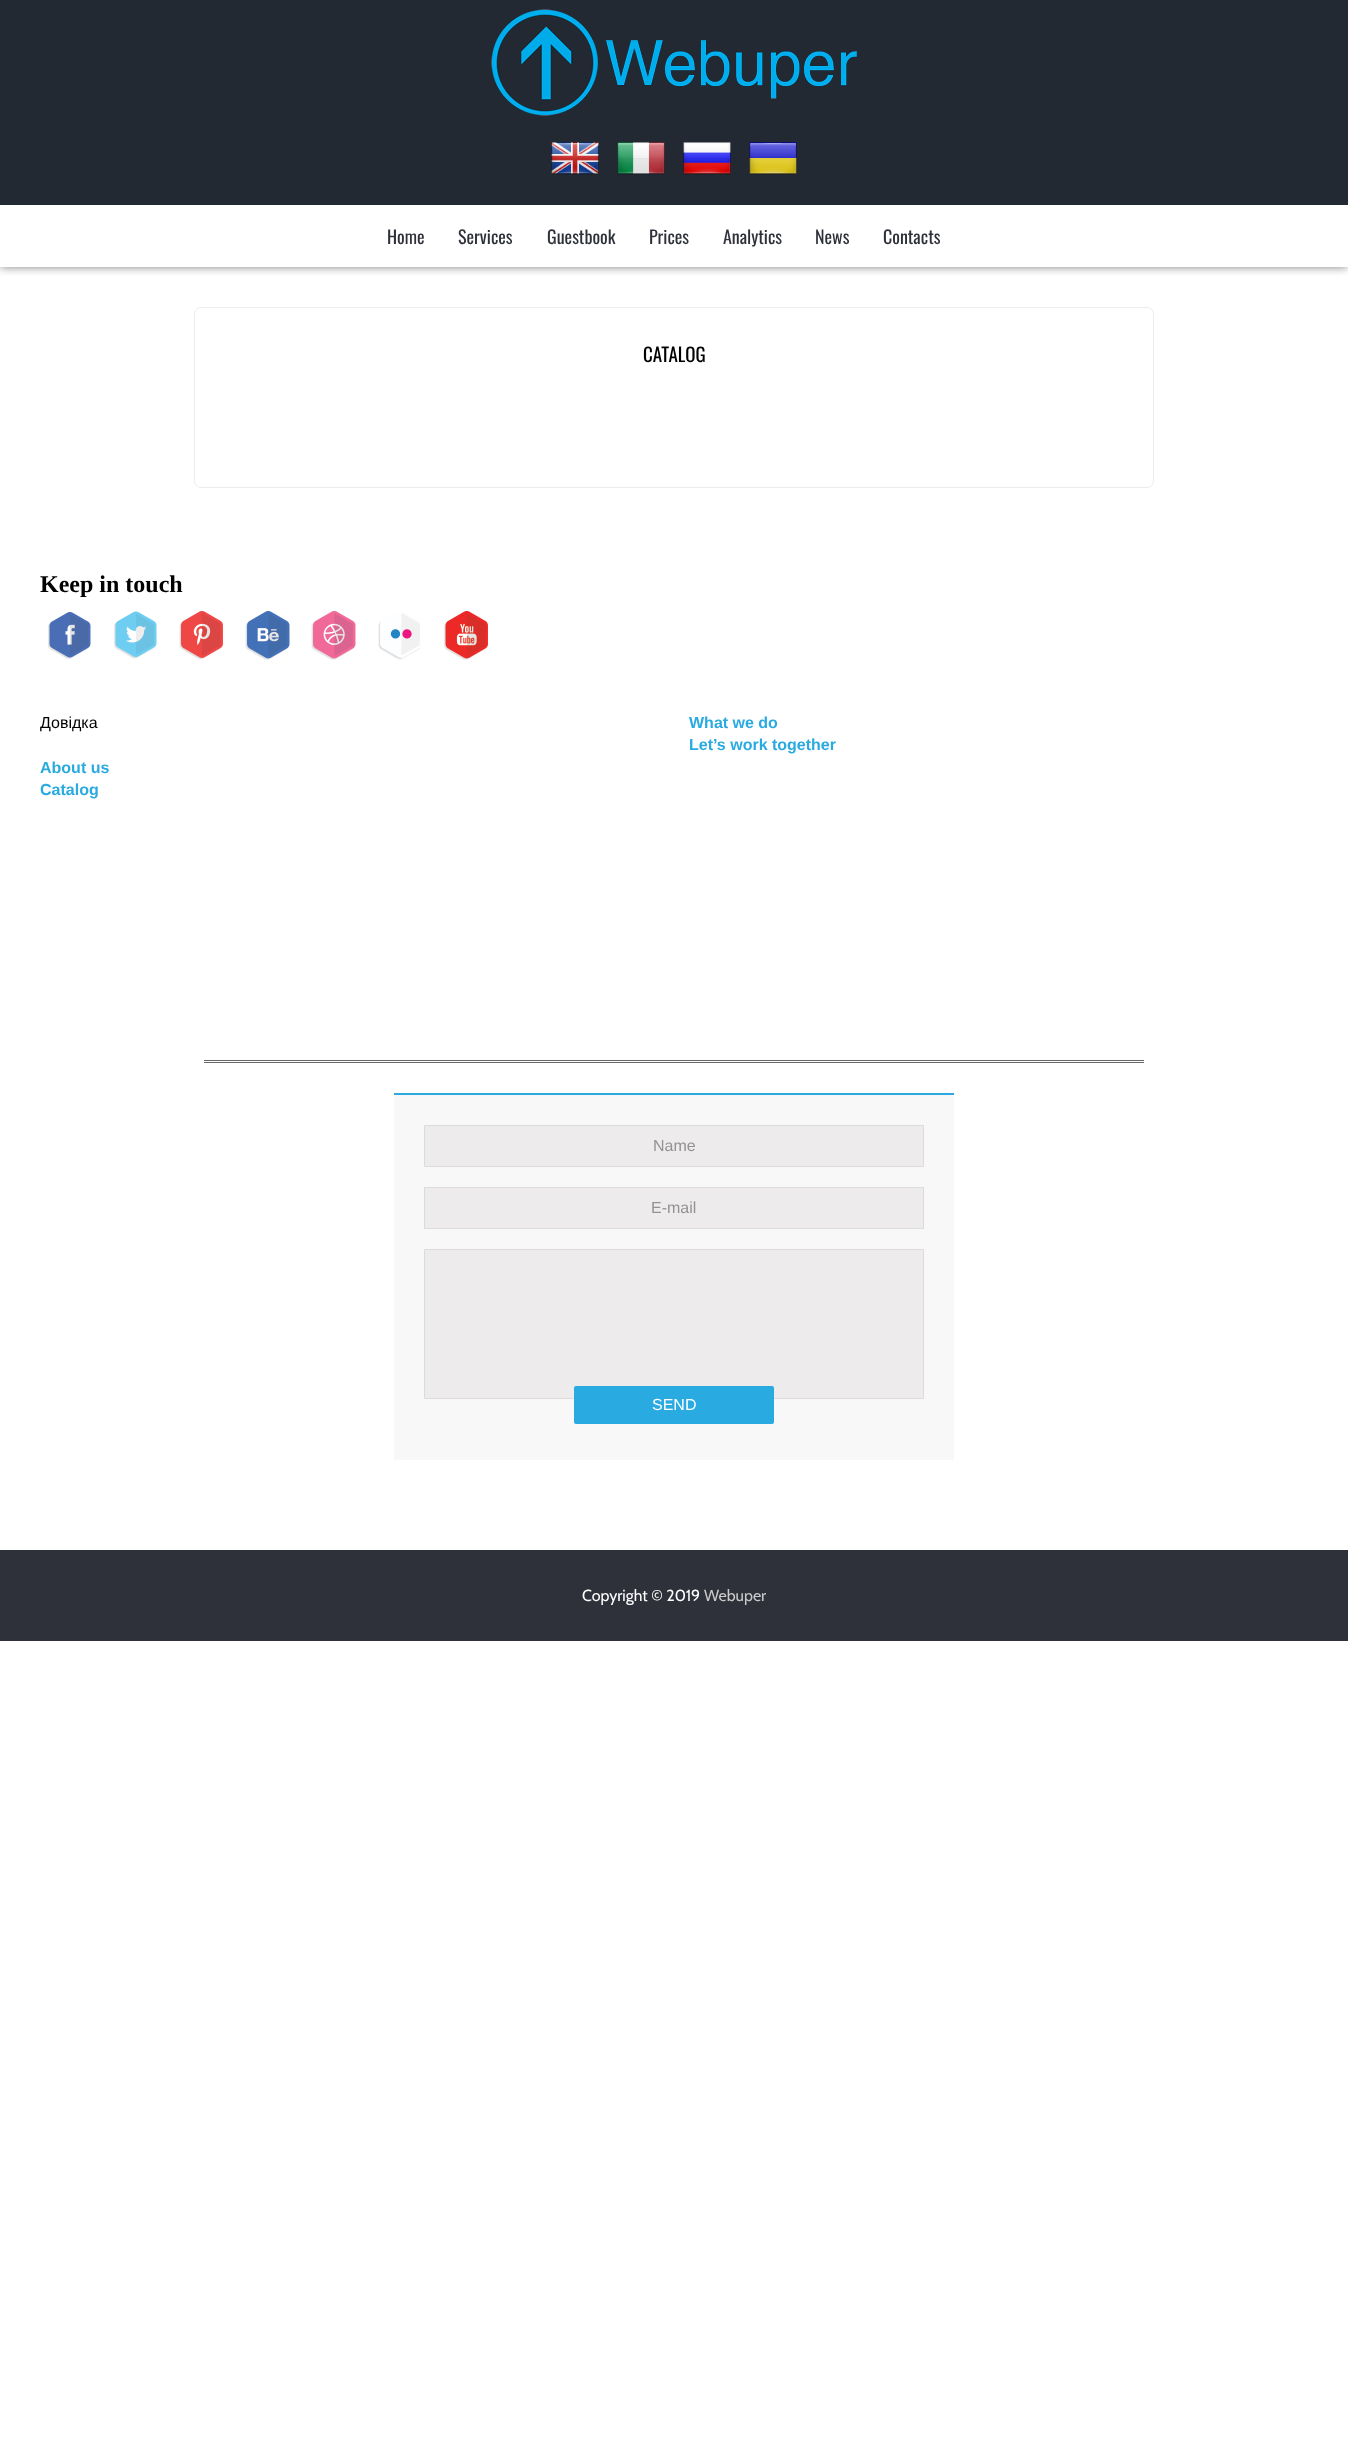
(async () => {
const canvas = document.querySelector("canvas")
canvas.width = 1348
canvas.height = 2443
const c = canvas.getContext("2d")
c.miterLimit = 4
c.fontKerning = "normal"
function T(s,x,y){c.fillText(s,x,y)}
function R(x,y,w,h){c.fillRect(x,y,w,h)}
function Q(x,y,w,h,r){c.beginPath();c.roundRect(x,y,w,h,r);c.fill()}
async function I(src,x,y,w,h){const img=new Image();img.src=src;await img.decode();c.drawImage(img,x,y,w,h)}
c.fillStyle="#fff"
R(0,0,1348,2443)
c.save()
c.beginPath()
c.rect(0,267,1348,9)
c.clip()
c.fillStyle="#00000080"
c.filter="blur(5px)"
c.beginPath()
c.rect(0,205,1348,62)
c.fill()
c.filter="none"
c.restore()
c.fillStyle="#222933"
R(0,0,1348,205)
await I("1.png",491,9,366,107)
await I("2.png",551,142,48,33)
await I("3.png",617,142,48,33)
await I("4.png",683,142,48,33)
await I("5.png",749,142,48,33)
c.font="18px Oswald"
c.fillStyle="#2e3139"
T("Home",387,244)
T("Services",458,244)
T("Guestbook",547,244)
T("Prices",649,244)
T("Analytics",723,244)
T("News",815,244)
T("Contacts",883,244)
c.beginPath()
c.roundRect(194.5,307.5,959,180,6.5)
c.strokeStyle="#ededed"
c.stroke()
c.font="19px Oswald"
c.fillStyle="#000"
T("CATALOG",643,362)
c.font="bold 24px Liberation Serif"
T("Keep in touch",40,592)
await I("6.png",48,612,43,47)
await I("7.png",114,611,43,48)
await I("8.png",179,611,44,49)
await I("9.png",245,611,45,49)
await I("10.png",311,611,45,49)
await I("11.png",378,612,43,48)
await I("12.png",444,611,44,49)
c.font="16px Liberation Sans"
T("Довідка",40,728)
c.font="bold 16px Liberation Sans"
c.fillStyle="#29aae1"
T("About us",40,773)
T("Catalog",40,795)
T("What we do",689,728)
T("Let’s work together",689,750)
c.fillStyle="#666"
R(204,1060,940,1)
R(204,1062,940,1)
c.fillStyle="#f8f8f8"
R(394,1095,560,365)
c.fillStyle="#29aae1"
R(394,1093,560,2)
c.fillStyle="#edebec"
c.beginPath()
c.rect(424.5,1125.5,499,41)
c.fill()
c.strokeStyle="#dbdbdb"
c.stroke()
c.font="16px Liberation Sans"
c.fillStyle="#939393"
T("Name",653,1151)
c.fillStyle="#edebec"
c.beginPath()
c.rect(424.5,1187.5,499,41)
c.fill()
c.stroke()
c.fillStyle="#939393"
T("E-mail",651,1213)
c.fillStyle="#edebec"
c.beginPath()
c.rect(424.5,1249.5,499,149)
c.fill()
c.stroke()
c.fillStyle="#29aae1"
Q(574,1386,200,38,2)
c.fillStyle="#fff"
T("SEND",652,1410)
c.fillStyle="#2e3139"
R(0,1550,1348,91)
c.font="16px Cabin"
c.fillStyle="#fff"
T("Copyright © 2019",582,1601)
c.fillStyle="#cacaca"
T("Webuper",704,1601)
})()
